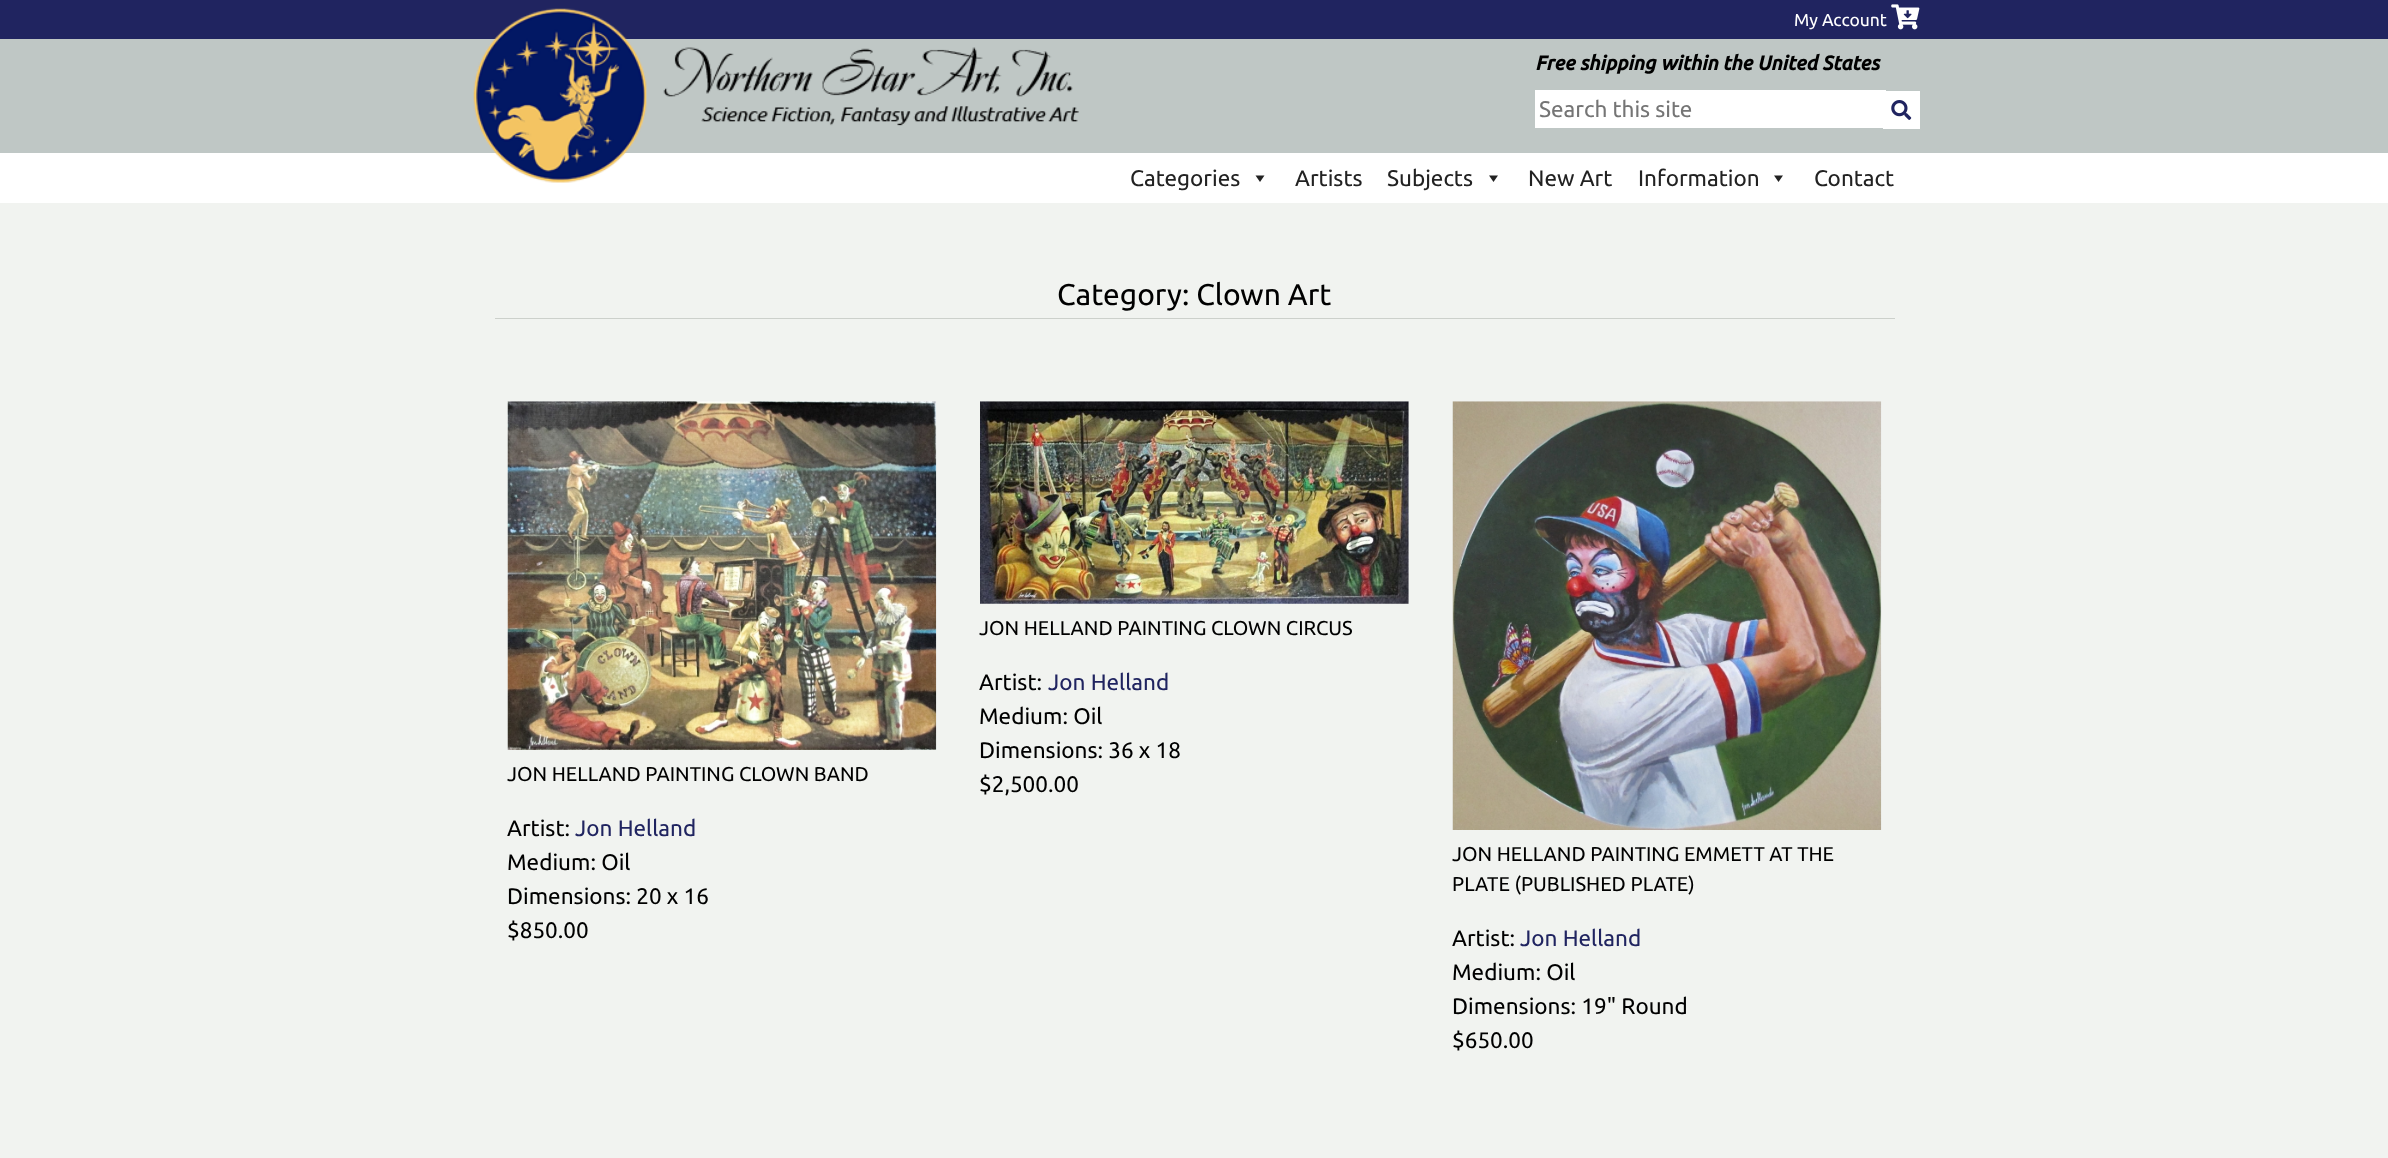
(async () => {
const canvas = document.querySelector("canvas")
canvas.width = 2388
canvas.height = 1158
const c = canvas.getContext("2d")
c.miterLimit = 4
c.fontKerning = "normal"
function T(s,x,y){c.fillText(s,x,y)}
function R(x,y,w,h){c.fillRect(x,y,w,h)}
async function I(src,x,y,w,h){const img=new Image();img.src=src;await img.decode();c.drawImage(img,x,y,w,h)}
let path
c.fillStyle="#f1f3f0"
R(0,0,2388,1158)
c.fillStyle="#bfc7c5"
R(0,39,2388,114)
c.fillStyle="#202460"
R(0,0,2388,39)
c.font="17.5px Ubuntu"
c.fillStyle="#fff"
T("My Account",1794,26)
await I("1.png",1891,4,29,26)
R(0,153,2388,50)
await I("2.png",473,8,174,175)
await I("3.png",663,47,416,79)
c.font="italic bold 20px Ubuntu"
c.fillStyle="#000"
T("Free shipping within the United States",1535,70)
c.fillStyle="#fff"
R(1535,90,351,38)
c.font="22.5px Ubuntu"
c.fillStyle="#757575"
T("Search this site",1539,117)
c.fillStyle="#fff"
R(1883,91,37,38)
await I("4.png",1891,100,21,20)
c.fillStyle="#222"
T("Categories",1130,186)
path = new Path2D("M1264.5 175.5l-4.5 6.5l-4.5-6.5z")
c.fill(path)
T("Artists",1295,186)
T("Subjects",1387,186)
path = new Path2D("M1498 175.5l-4.5 6.5l-4.5-6.5z")
c.fill(path)
T("New Art",1528,186)
T("Information",1638,186)
path = new Path2D("M1783 175.5l-4.5 6.5l-4.5-6.5z")
c.fill(path)
T("Contact",1814,186)
c.fillStyle="#ccd0cb"
R(495,318,1400,1)
c.font="30px Ubuntu"
c.fillStyle="#000"
T("Category: Clown Art",1057,305)
await I("5.png",980,401,429,203)
c.font="20px Ubuntu"
T("JON HELLAND PAINTING CLOWN CIRCUS",979,635)
c.font="22.5px Ubuntu"
T("Artist:",979,690)
c.fillStyle="#202460"
T("Jon Helland",1048,690)
c.fillStyle="#000"
T("Medium: Oil",979,724)
T("Dimensions: 36 x 18",979,758)
T("$2,500.00",979,792)
await I("6.png",507,401,430,349)
c.font="20px Ubuntu"
T("JON HELLAND PAINTING CLOWN BAND",507,781)
c.font="22.5px Ubuntu"
T("Artist:",507,836)
c.fillStyle="#202460"
T("Jon Helland",575,836)
c.fillStyle="#000"
T("Medium: Oil",507,870)
T("Dimensions: 20 x 16",507,904)
T("$850.00",507,938)
await I("7.png",1452,401,430,429)
c.font="20px Ubuntu"
T("JON HELLAND PAINTING EMMETT AT THE",1452,861)
T("PLATE (PUBLISHED PLATE)",1452,891)
c.font="22.5px Ubuntu"
T("Artist:",1452,946)
c.fillStyle="#202460"
T("Jon Helland",1520,946)
c.fillStyle="#000"
T("Medium: Oil",1452,980)
T("Dimensions: 19\" Round",1452,1014)
T("$650.00",1452,1048)
})()
